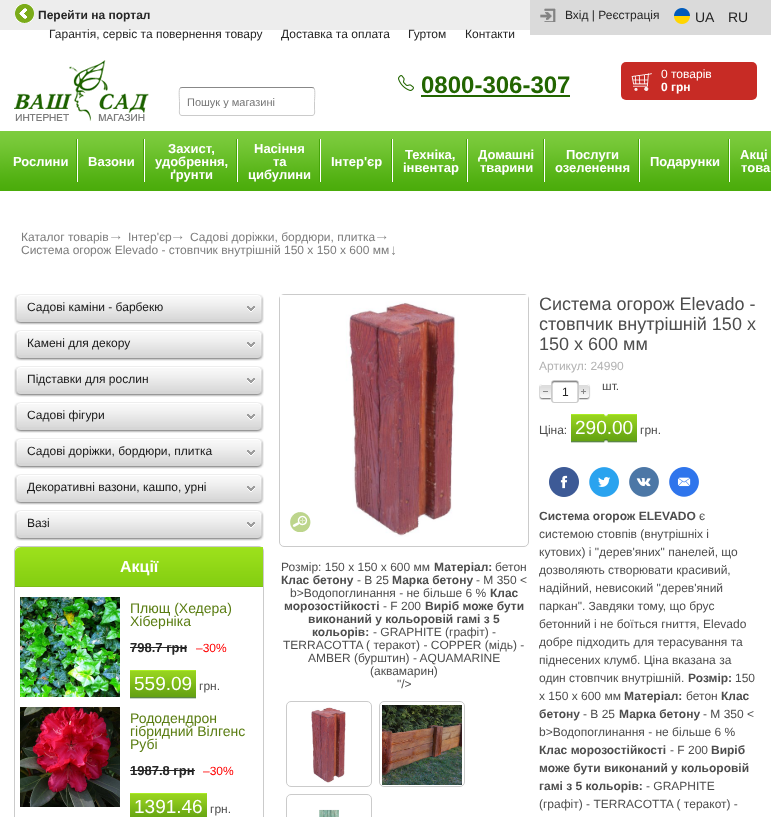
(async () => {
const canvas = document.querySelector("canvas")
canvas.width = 771
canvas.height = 817
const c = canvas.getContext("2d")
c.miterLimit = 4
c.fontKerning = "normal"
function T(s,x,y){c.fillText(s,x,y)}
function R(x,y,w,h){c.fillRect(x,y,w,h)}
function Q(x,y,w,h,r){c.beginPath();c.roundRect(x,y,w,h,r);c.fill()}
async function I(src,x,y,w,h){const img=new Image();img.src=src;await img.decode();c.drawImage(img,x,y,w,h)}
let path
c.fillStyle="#fff"
R(0,0,771,817)
c.fillStyle="#ededed"
R(0,0,530,30)
await I("1.png",15,4,19,19)
c.font="bold 12px Liberation Sans"
c.fillStyle="#252525"
T("Перейти на портал",38,19)
c.fillStyle="#dadada"
R(530,0,241,35)
await I("2.png",540,8,16,14)
c.font="12px Liberation Sans"
c.fillStyle="#252525"
T("Вхід | Реєстрація",565,19)
await I("3.png",674,8,16,16)
c.font="14px Liberation Sans"
T("UA",695,22)
T("RU",728,22)
c.font="12px Liberation Sans"
T("Гарантія, сервіс та повернення товару",49,38)
T("Доставка та оплата",281,38)
T("Гуртом",408,38)
T("Контакти",465,38)
await I("4.png",14,60,135,61)
await I("5.png",398,75,16,16)
c.font="bold 24px Liberation Sans"
c.fillStyle="#226500"
T("0800-306-307",421,93)
R(421,95,149,2)
c.fillStyle="#c72b25"
Q(621,62,136,38,5)
await I("6.png",631,73,21,18)
c.font="12px Liberation Sans"
c.fillStyle="#fff"
T("0 товарів",661,78)
c.font="bold 12px Liberation Sans"
T("0 грн",661,91)
path = new Path2D("M180 88l2-.5h130l2 .5")
c.strokeStyle="#888"
c.stroke(path)
path = new Path2D("M314 88c1.5 2 .5 11 .5 13.5v7.5c0 2 1 6.5-2.5 6.5h-130c-3.5 0-2.5-4.5-2.5-6.5v-7.5c0-2.5-1-11.5 .5-13.5")
c.strokeStyle="#cbcbcb"
c.stroke(path)
c.save()
c.beginPath()
c.rect(187,96,107,12)
c.clip()
c.font="11px Liberation Sans"
c.fillStyle="#757575"
T("Пошук у магазині",187,106)
c.restore()
await I("7.png",0,131,771,60)
await I("8.png",76,139,2,43)
c.font="bold 13px Liberation Sans"
T("Рослини",13,166)
await I("8.png",143,139,2,43)
T("Вазони",88,166)
await I("8.png",236,139,2,43)
T("Захист,",168,153)
T("удобрення,",155,166)
T("ґрунти",170,179)
await I("8.png",319,139,2,43)
T("Насіння",254,153)
T("та",273,166)
T("цибулини",248,179)
await I("8.png",391,139,2,43)
T("Інтер'єр",331,166)
await I("8.png",466,139,2,43)
T("Техніка,",405,159)
T("інвентар",403,172)
await I("8.png",543,139,2,43)
T("Домашні",478,159)
T("тварини",480,172)
await I("8.png",638,139,2,43)
T("Послуги",566,159)
T("озеленення",555,172)
await I("8.png",728,139,2,43)
T("Подарунки",650,166)
T("Акці",740,159)
T("това",741,172)
c.font="12px Liberation Sans"
c.fillStyle="#7d7d7d"
T("Каталог товарів",21,241)
await I("9.png",111,235,10,5)
T("Інтер'єр",128,241)
await I("9.png",173,235,10,5)
T("Садові доріжки, бордюри, плитка",190,241)
await I("9.png",377,235,10,5)
T("Система огорож Elevado - стовпчик внутрішній 150 х 150 х 600 мм",21,254)
await I("10.png",392,246,3,9)
await I("11.png",14,294,250,25)
await I("12.png",14,319,250,6)
c.fillStyle="#171717"
T("Садові каміни - барбекю",27,311)
await I("13.png",247,306,8,6)
await I("11.png",14,330,250,25)
await I("12.png",14,355,250,6)
T("Камені для декору",27,347)
await I("13.png",247,342,8,6)
await I("11.png",14,366,250,25)
await I("12.png",14,391,250,6)
T("Підставки для рослин",27,383)
await I("13.png",247,378,8,6)
await I("11.png",14,402,250,25)
await I("12.png",14,427,250,6)
T("Садові фігури",27,419)
await I("13.png",247,414,8,6)
await I("11.png",14,438,250,25)
await I("12.png",14,463,250,6)
T("Садові доріжки, бордюри, плитка",27,455)
await I("13.png",247,450,8,6)
await I("11.png",14,474,250,25)
await I("12.png",14,499,250,6)
T("Декоративні вазони, кашпо, урні",27,491)
await I("13.png",247,486,8,6)
await I("11.png",14,510,250,25)
await I("12.png",14,535,250,6)
T("Вазі",27,527)
await I("13.png",247,522,8,6)
c.beginPath()
c.roundRect(14.5,546.5,249,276,4.5)
c.stroke()
await I("14.png",15,547,248,40)
c.font="bold 16px Liberation Sans"
c.fillStyle="#fff"
T("Акції",120,572)
await I("15.png",20,597,100,100)
c.font="14px Liberation Sans"
c.fillStyle="#5a7d12"
T("Плющ (Хедера)",130,613)
T("Хіберніка",130,626)
c.font="bold 13px Liberation Sans"
c.fillStyle="#252525"
T("798.7 грн",130,652)
R(130,647,57,1)
c.font="12px Liberation Sans"
c.fillStyle="#f00"
T("–30%",196,652)
await I("16.png",130,670,66,29)
c.font="19px Liberation Sans"
c.fillStyle="#fff"
T("559.09",134,690)
c.font="12px Liberation Sans"
c.fillStyle="#4d4d4d"
T("грн.",199,690)
await I("17.png",20,707,100,100)
c.font="14px Liberation Sans"
c.fillStyle="#5a7d12"
T("Рододендрон",130,723)
T("гібридний Вілгенс",130,736)
T("Рубі",130,749)
c.font="bold 13px Liberation Sans"
c.fillStyle="#252525"
T("1987.8 грн",130,775)
R(130,770,65,1)
c.font="12px Liberation Sans"
c.fillStyle="#f00"
T("–30%",203,775)
await I("18.png",130,793,77,24)
c.font="19px Liberation Sans"
c.fillStyle="#fff"
T("1391.46",134,813)
c.font="12px Liberation Sans"
c.fillStyle="#4d4d4d"
T("грн.",210,813)
c.beginPath()
c.roundRect(279.5,294.5,249,252,4.5)
c.stroke()
await I("19.png",280,295,248,242)
await I("20.png",290,512,21,20)
T("Розмір: 150 х 150 х 600 мм",281,571)
c.font="bold 12px Liberation Sans"
T("Матеріал:",434,571)
c.font="12px Liberation Sans"
T("бетон",495,571)
c.font="bold 12px Liberation Sans"
T("Клас бетону",281,584)
c.font="12px Liberation Sans"
T("- В 25",357,584)
c.font="bold 12px Liberation Sans"
T("Марка бетону",392,584)
c.font="12px Liberation Sans"
T("- М 350 <",476,584)
T("b>Водопоглинання - не більше 6 %",290,597)
c.font="bold 12px Liberation Sans"
T("Клас",490,597)
T("морозостійкості",284,610)
c.font="12px Liberation Sans"
T("- F 200",383,610)
c.font="bold 12px Liberation Sans"
T("Виріб може бути",425,610)
T("виконаний у кольоровій гамі з 5",308,623)
T("кольорів:",312,636)
c.font="12px Liberation Sans"
T("- GRAPHITE (графіт) -",373,636)
T("TERRACOTTA ( теракот) - COPPER (мідь) -",283,649)
T("AMBER (бурштин) - AQUAMARINE",308,662)
T("(аквамарин)",370,675)
T("\"/>",397,688)
c.beginPath()
c.roundRect(286.5,701.5,85,85,4.5)
c.stroke()
await I("21.png",311,707,35,76)
c.beginPath()
c.roundRect(379.5,701.5,85,85,4.5)
c.stroke()
await I("22.png",382,705,80,80)
c.beginPath()
c.roundRect(286.5,794.5,85,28,4.5)
c.stroke()
await I("23.png",319,809,20,8)
c.font="18px Liberation Sans"
T("Система огорож Elevado -",539,310)
T("стовпчик внутрішній 150 х",539,330)
T("150 х 600 мм",539,350)
c.font="12px Liberation Sans"
c.fillStyle="#b2b2b2"
T("Артикул: 24990",539,370)
await I("24.png",539,384,12,16)
await I("25.png",551,380,3,23)
await I("26.png",554,380,22,23)
c.fillStyle="#252525"
T("1",562,396)
await I("27.png",576,380,3,23)
await I("28.png",579,384,12,16)
c.fillStyle="#4d4d4d"
T("шт.",602,390)
T("Ціна:",539,434)
await I("16.png",571,414,66,29)
await I("29.png",604,414,4,29)
c.font="19px Liberation Sans"
c.fillStyle="#fff"
T("290.00",575,434)
c.font="12px Liberation Sans"
c.fillStyle="#4d4d4d"
T("грн.",640,434)
await I("30.png",549,467,30,30)
await I("31.png",589,467,30,30)
await I("32.png",629,467,30,30)
await I("33.png",669,467,30,30)
c.font="bold 12px Liberation Sans"
T("Система огорож ELEVADO",539,520)
c.font="12px Liberation Sans"
T("є",699,520)
T("системою стовпів (внутрішніх і",539,538)
T("кутових) і \"дерев'яних\" панелей, що",539,556)
T("дозволяють створювати красивий,",539,574)
T("надійний, невисокий \"дерев'яний",539,592)
T("паркан\". Завдяки тому, що брус",539,610)
T("бетонний і не боїться гниття, Elevado",539,628)
T("добре підходить для терасування та",539,646)
T("піднесених клумб. Ціна вказана за",539,664)
T("один стовпчик внутрішній.",539,682)
c.font="bold 12px Liberation Sans"
T("Розмір:",688,682)
c.font="12px Liberation Sans"
T("150",735,682)
T("х 150 х 600 мм",539,700)
c.font="bold 12px Liberation Sans"
T("Матеріал:",624,700)
c.font="12px Liberation Sans"
T("бетон",686,700)
c.font="bold 12px Liberation Sans"
T("Клас",721,700)
T("бетону",539,718)
c.font="12px Liberation Sans"
T("- В 25",583,718)
c.font="bold 12px Liberation Sans"
T("Марка бетону",619,718)
c.font="12px Liberation Sans"
T("- М 350 <",703,718)
T("b>Водопоглинання - не більше 6 %",539,736)
c.font="bold 12px Liberation Sans"
T("Клас морозостійкості",539,754)
c.font="12px Liberation Sans"
T("- F 200",670,754)
c.font="bold 12px Liberation Sans"
T("Виріб",711,754)
T("може бути виконаний у кольоровій",539,772)
T("гамі з 5 кольорів:",539,790)
c.font="12px Liberation Sans"
T("- GRAPHITE",646,790)
T("(графіт) - TERRACOTTA ( теракот) -",539,808)
})()
